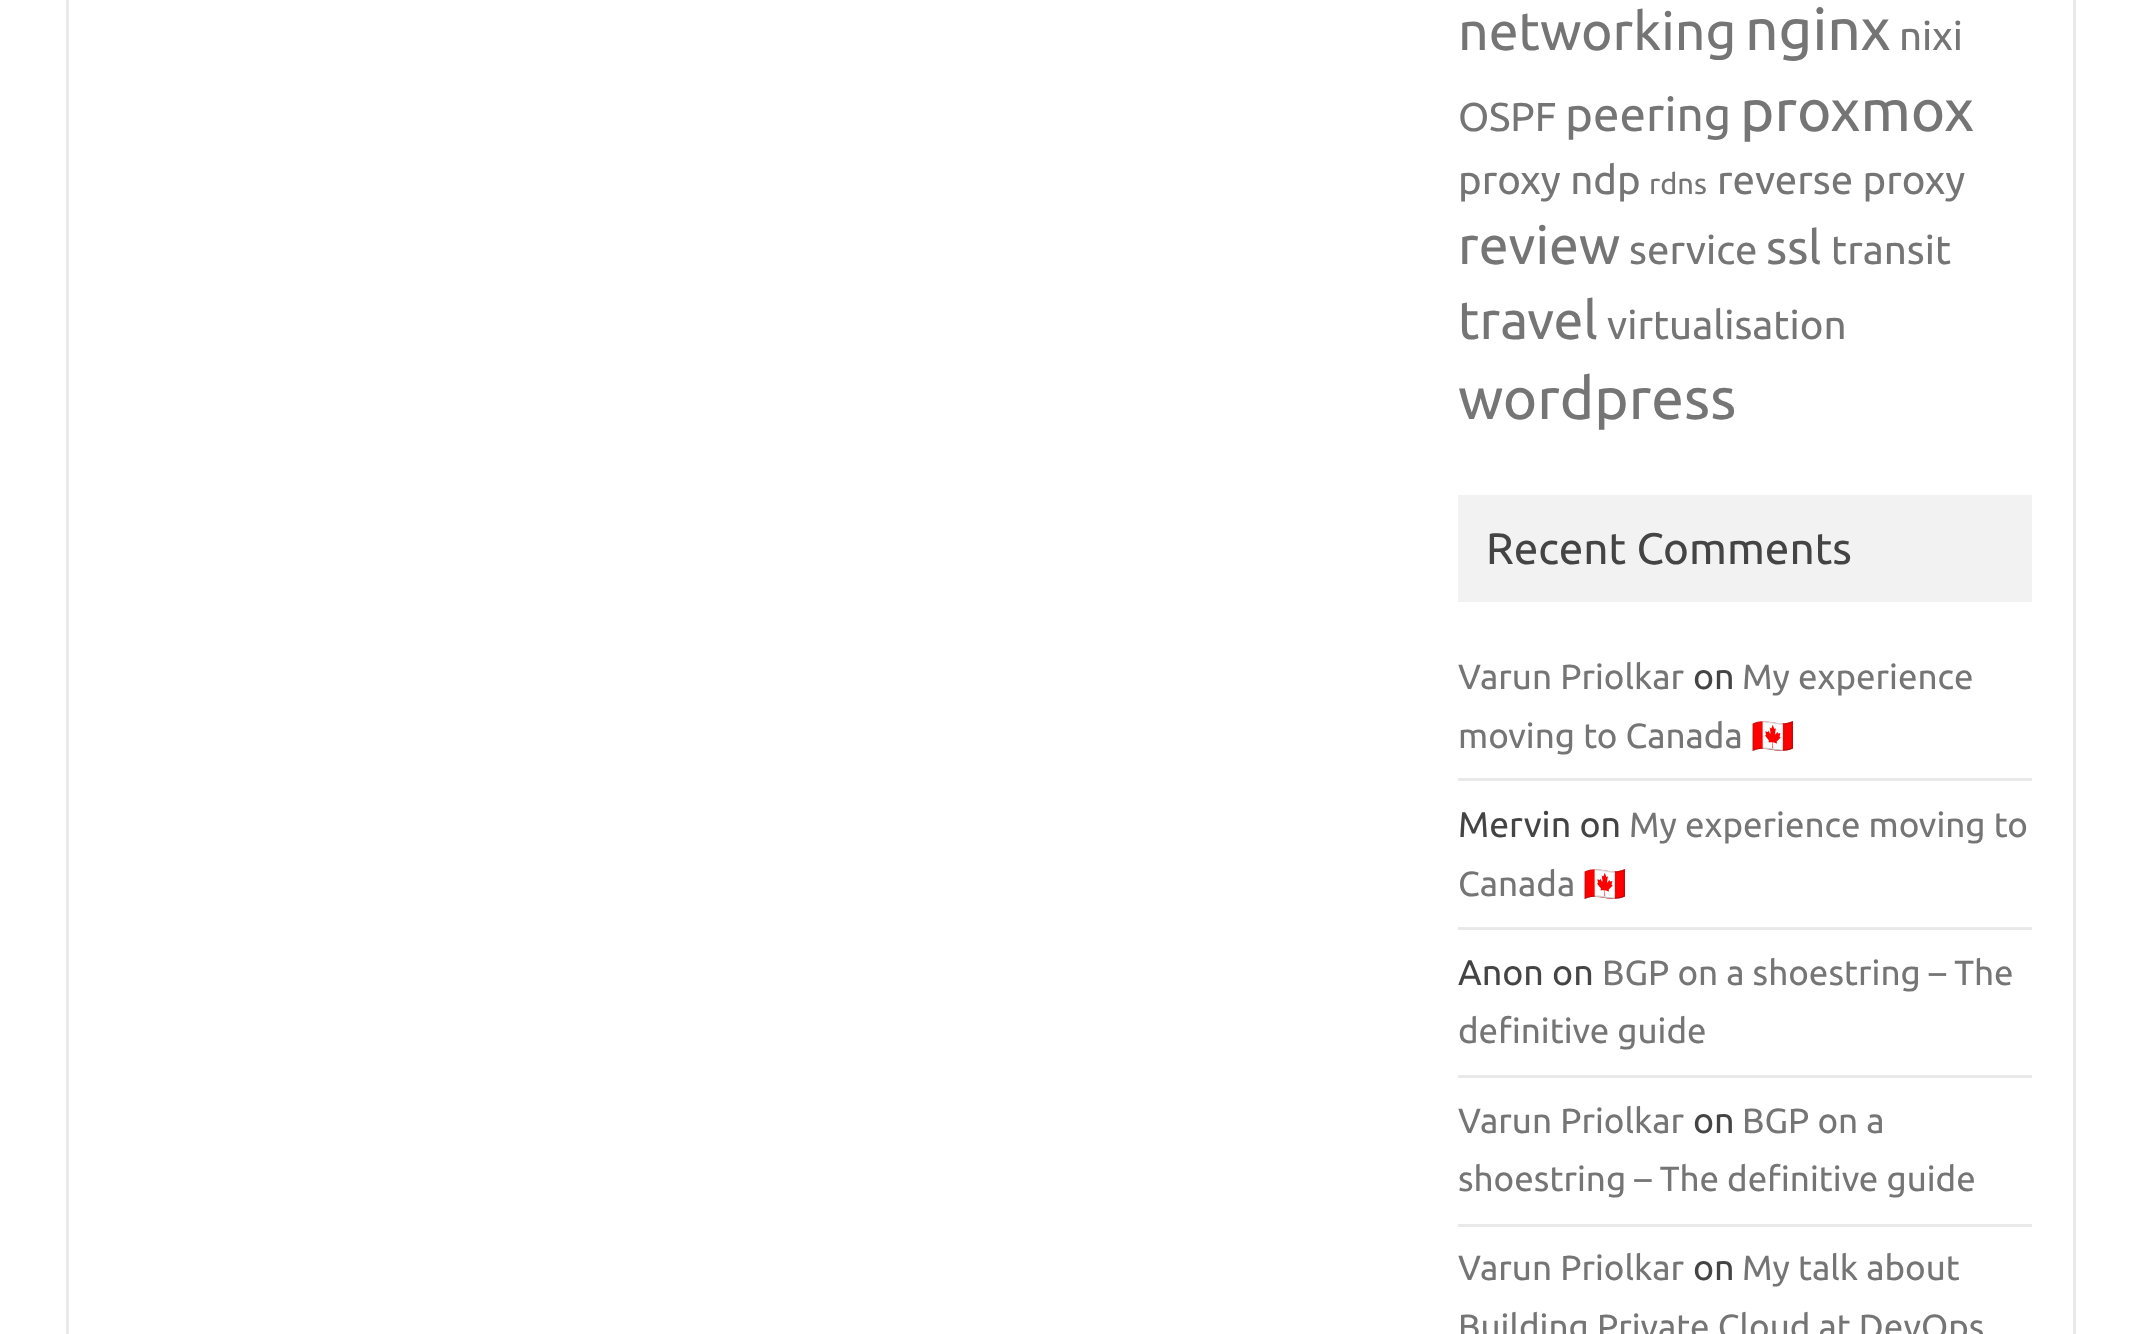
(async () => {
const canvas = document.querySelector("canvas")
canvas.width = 2142
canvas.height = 1334
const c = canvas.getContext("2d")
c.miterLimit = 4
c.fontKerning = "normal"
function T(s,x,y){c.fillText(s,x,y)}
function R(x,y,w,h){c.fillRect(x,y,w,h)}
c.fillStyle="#fff"
R(0,0,2142,1334)
c.strokeStyle="#e9e9e9"
c.lineWidth=3
c.strokeRect(67.5,-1.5,2007,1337)
c.font="53.5px Ubuntu"
c.fillStyle="#757575"
T("networking",1458,50)
c.font="58.5px Ubuntu"
T("nginx",1745,50)
c.font="40.25px Ubuntu"
T("nixi",1899,50)
T("OSPF",1458,131)
c.font="47.5px Ubuntu"
T("peering",1565,131)
c.font="58.5px Ubuntu"
T("proxmox",1740,131)
c.font="40.25px Ubuntu"
T("proxy ndp",1458,194)
c.font="29px Ubuntu"
T("rdns",1649,194)
c.font="40.25px Ubuntu"
T("reverse proxy",1717,194)
c.font="53.5px Ubuntu"
T("review",1458,264)
c.font="40.25px Ubuntu"
T("service",1629,264)
c.font="47.5px Ubuntu"
T("ssl",1766,264)
c.font="40.25px Ubuntu"
T("transit",1831,264)
c.font="53.5px Ubuntu"
T("travel",1458,339)
c.font="40.25px Ubuntu"
T("virtualisation",1607,339)
c.font="58.5px Ubuntu"
T("wordpress",1458,419)
c.fillStyle="#f2f2f2"
R(1458,495,574,107)
c.font="44px Ubuntu"
c.fillStyle="#444"
T("Recent Comments",1486,564)
c.fillStyle="#e9e9e9"
R(1458,778,574,3)
c.font="35px Ubuntu"
c.fillStyle="#757575"
T("Varun Priolkar",1458,689)
c.font="35.75px Ubuntu"
c.fillStyle="#444"
T("on",1693,689)
c.font="35px Ubuntu"
c.fillStyle="#757575"
T("My experience",1742,689)
T("moving to Canada",1458,748)
c.font="35px Noto Color Emoji"
T("🇨🇦",1751,748)
c.fillStyle="#e9e9e9"
R(1458,927,574,3)
c.font="35.75px Ubuntu"
c.fillStyle="#444"
T("Mervin on",1458,837)
c.font="35px Ubuntu"
c.fillStyle="#757575"
T("My experience moving to",1629,837)
T("Canada",1458,896)
c.font="35px Noto Color Emoji"
T("🇨🇦",1583,896)
c.fillStyle="#e9e9e9"
R(1458,1075,574,3)
c.font="35.75px Ubuntu"
c.fillStyle="#444"
T("Anon on",1458,985)
c.font="35px Ubuntu"
c.fillStyle="#757575"
T("BGP on a shoestring – The",1602,985)
T("definitive guide",1458,1043)
c.fillStyle="#e9e9e9"
R(1458,1224,574,3)
c.fillStyle="#757575"
T("Varun Priolkar",1458,1133)
c.font="35.75px Ubuntu"
c.fillStyle="#444"
T("on",1693,1133)
c.font="35px Ubuntu"
c.fillStyle="#757575"
T("BGP on a",1742,1133)
T("shoestring – The definitive guide",1458,1191)
T("Varun Priolkar",1458,1280)
c.font="35.75px Ubuntu"
c.fillStyle="#444"
T("on",1693,1280)
c.font="35px Ubuntu"
c.fillStyle="#757575"
T("My talk about",1742,1280)
T("Building Private Cloud at DevOps",1458,1339)
})()
